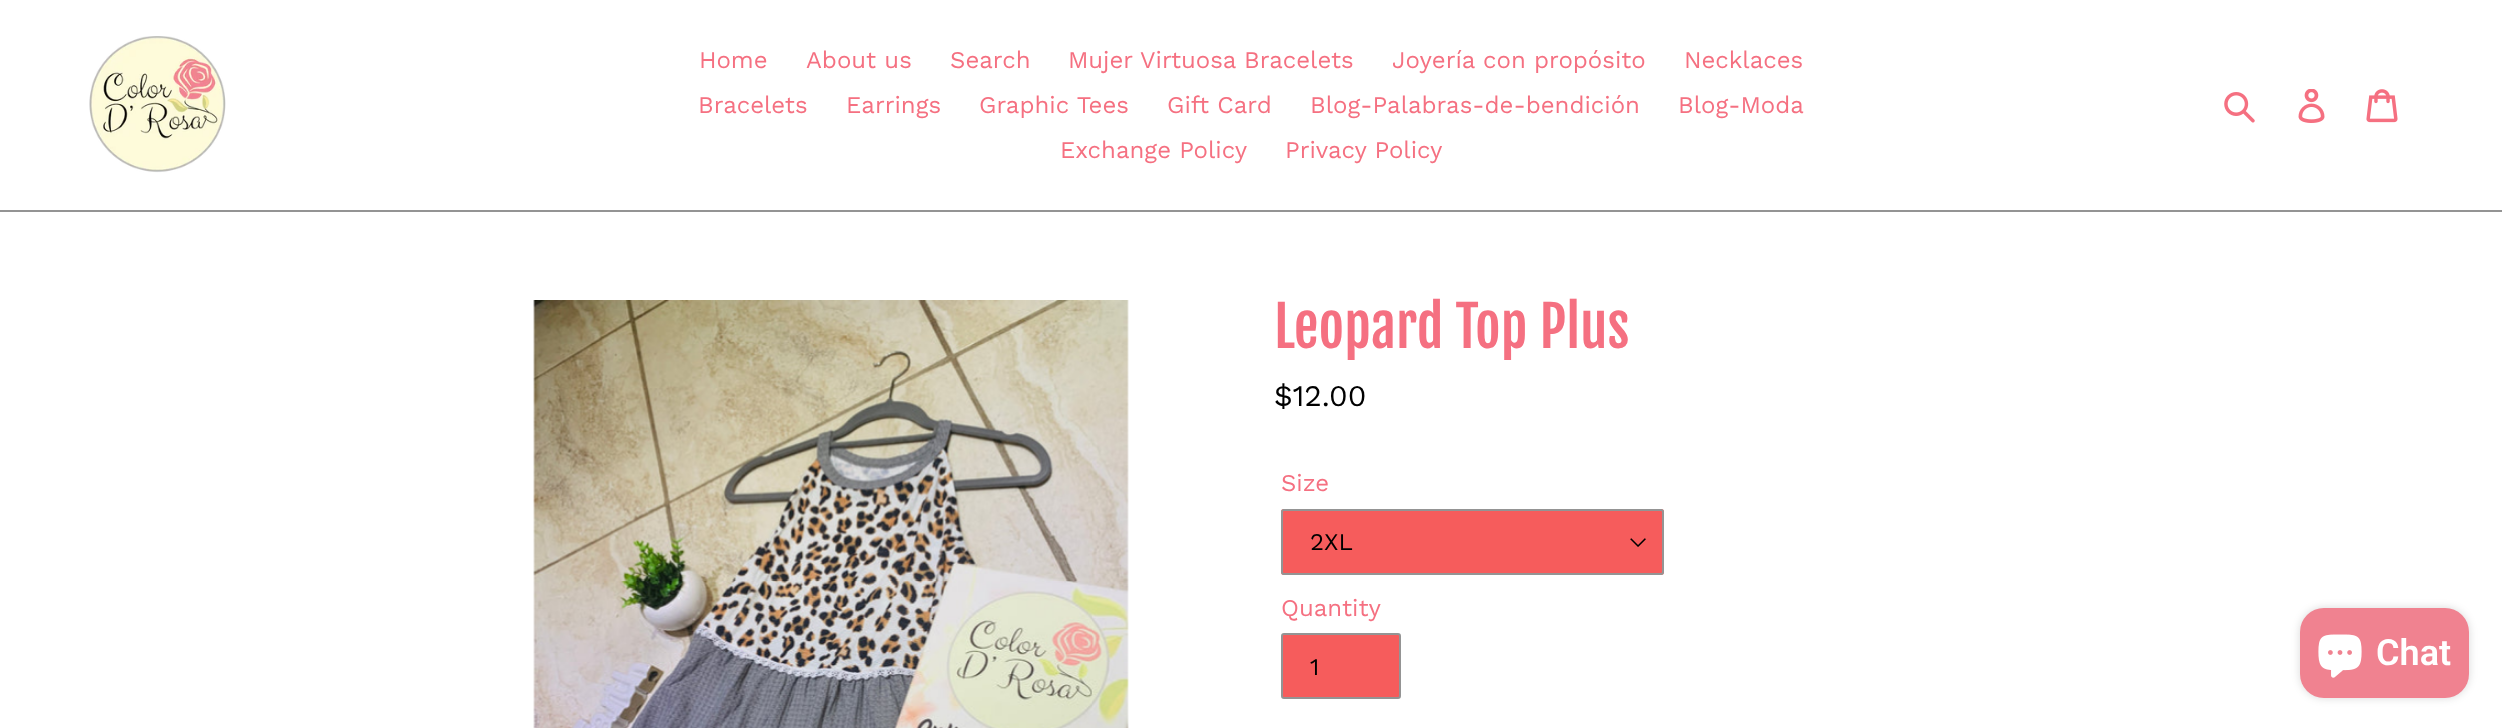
(async () => {
const canvas = document.querySelector("canvas")
canvas.width = 2502
canvas.height = 728
const c = canvas.getContext("2d")
c.miterLimit = 4
c.fontKerning = "normal"
function T(s,x,y){c.fillText(s,x,y)}
function R(x,y,w,h){c.fillRect(x,y,w,h)}
function Q(x,y,w,h,r){c.beginPath();c.roundRect(x,y,w,h,r);c.fill()}
async function I(src,x,y,w,h){const img=new Image();img.src=src;await img.decode();c.drawImage(img,x,y,w,h)}
c.fillStyle="#fff"
R(0,0,2502,728)
c.fillStyle="#949494"
R(0,210,2502,2)
await I("1.png",89,36,137,137)
c.font="24px Work Sans"
c.fillStyle="#f57081"
T("Home",699,68)
T("About us",806,68)
T("Search",950,68)
T("Mujer Virtuosa Bracelets",1068,68)
T("Joyería con propósito",1392,68)
T("Necklaces",1684,68)
T("Bracelets",698,113)
T("Earrings",846,113)
T("Graphic Tees",979,113)
T("Gift Card",1167,113)
T("Blog-Palabras-de-bendición",1310,113)
T("Blog-Moda",1678,113)
T("Exchange Policy",1060,158)
T("Privacy Policy",1285,158)
await I("2.png",2224,92,31,31)
await I("3.png",2298,89,27,34)
await I("4.png",2366,89,32,34)
await I("5.png",533,300,596,428)
c.font="55.5px Fjalla One"
T("Leopard Top Plus",1274,348)
c.font="30px Work Sans"
c.fillStyle="#000"
T("$12.00",1274,406)
c.font="24px Work Sans"
c.fillStyle="#f57081"
T("Size",1281,491)
c.fillStyle="#f65c5c"
Q(1281,509,383,66,3)
await I("6.png",1630,538,16,9)
c.beginPath()
c.roundRect(1282,510,381,64,2)
c.strokeStyle="#949494"
c.lineWidth=2
c.stroke()
c.fillStyle="#000"
T("2XL",1310,550)
c.fillStyle="#f57081"
T("Quantity",1281,616)
c.fillStyle="#f65c5c"
c.beginPath()
c.roundRect(1282,634,118,64,2)
c.fill()
c.stroke()
c.fillStyle="#000"
T("1",1310,675)
c.fillStyle="#00000026"
c.filter="blur(4px)"
c.beginPath()
c.roundRect(2300,608,169,90,24)
c.fill()
c.filter="none"
c.fillStyle="#f08290"
Q(2300,608,169,90,24)
await I("7.png",2318,634,44,44)
c.font="600 36px Roboto"
c.fillStyle="#fff"
T("Chat",2376,665)
})()
